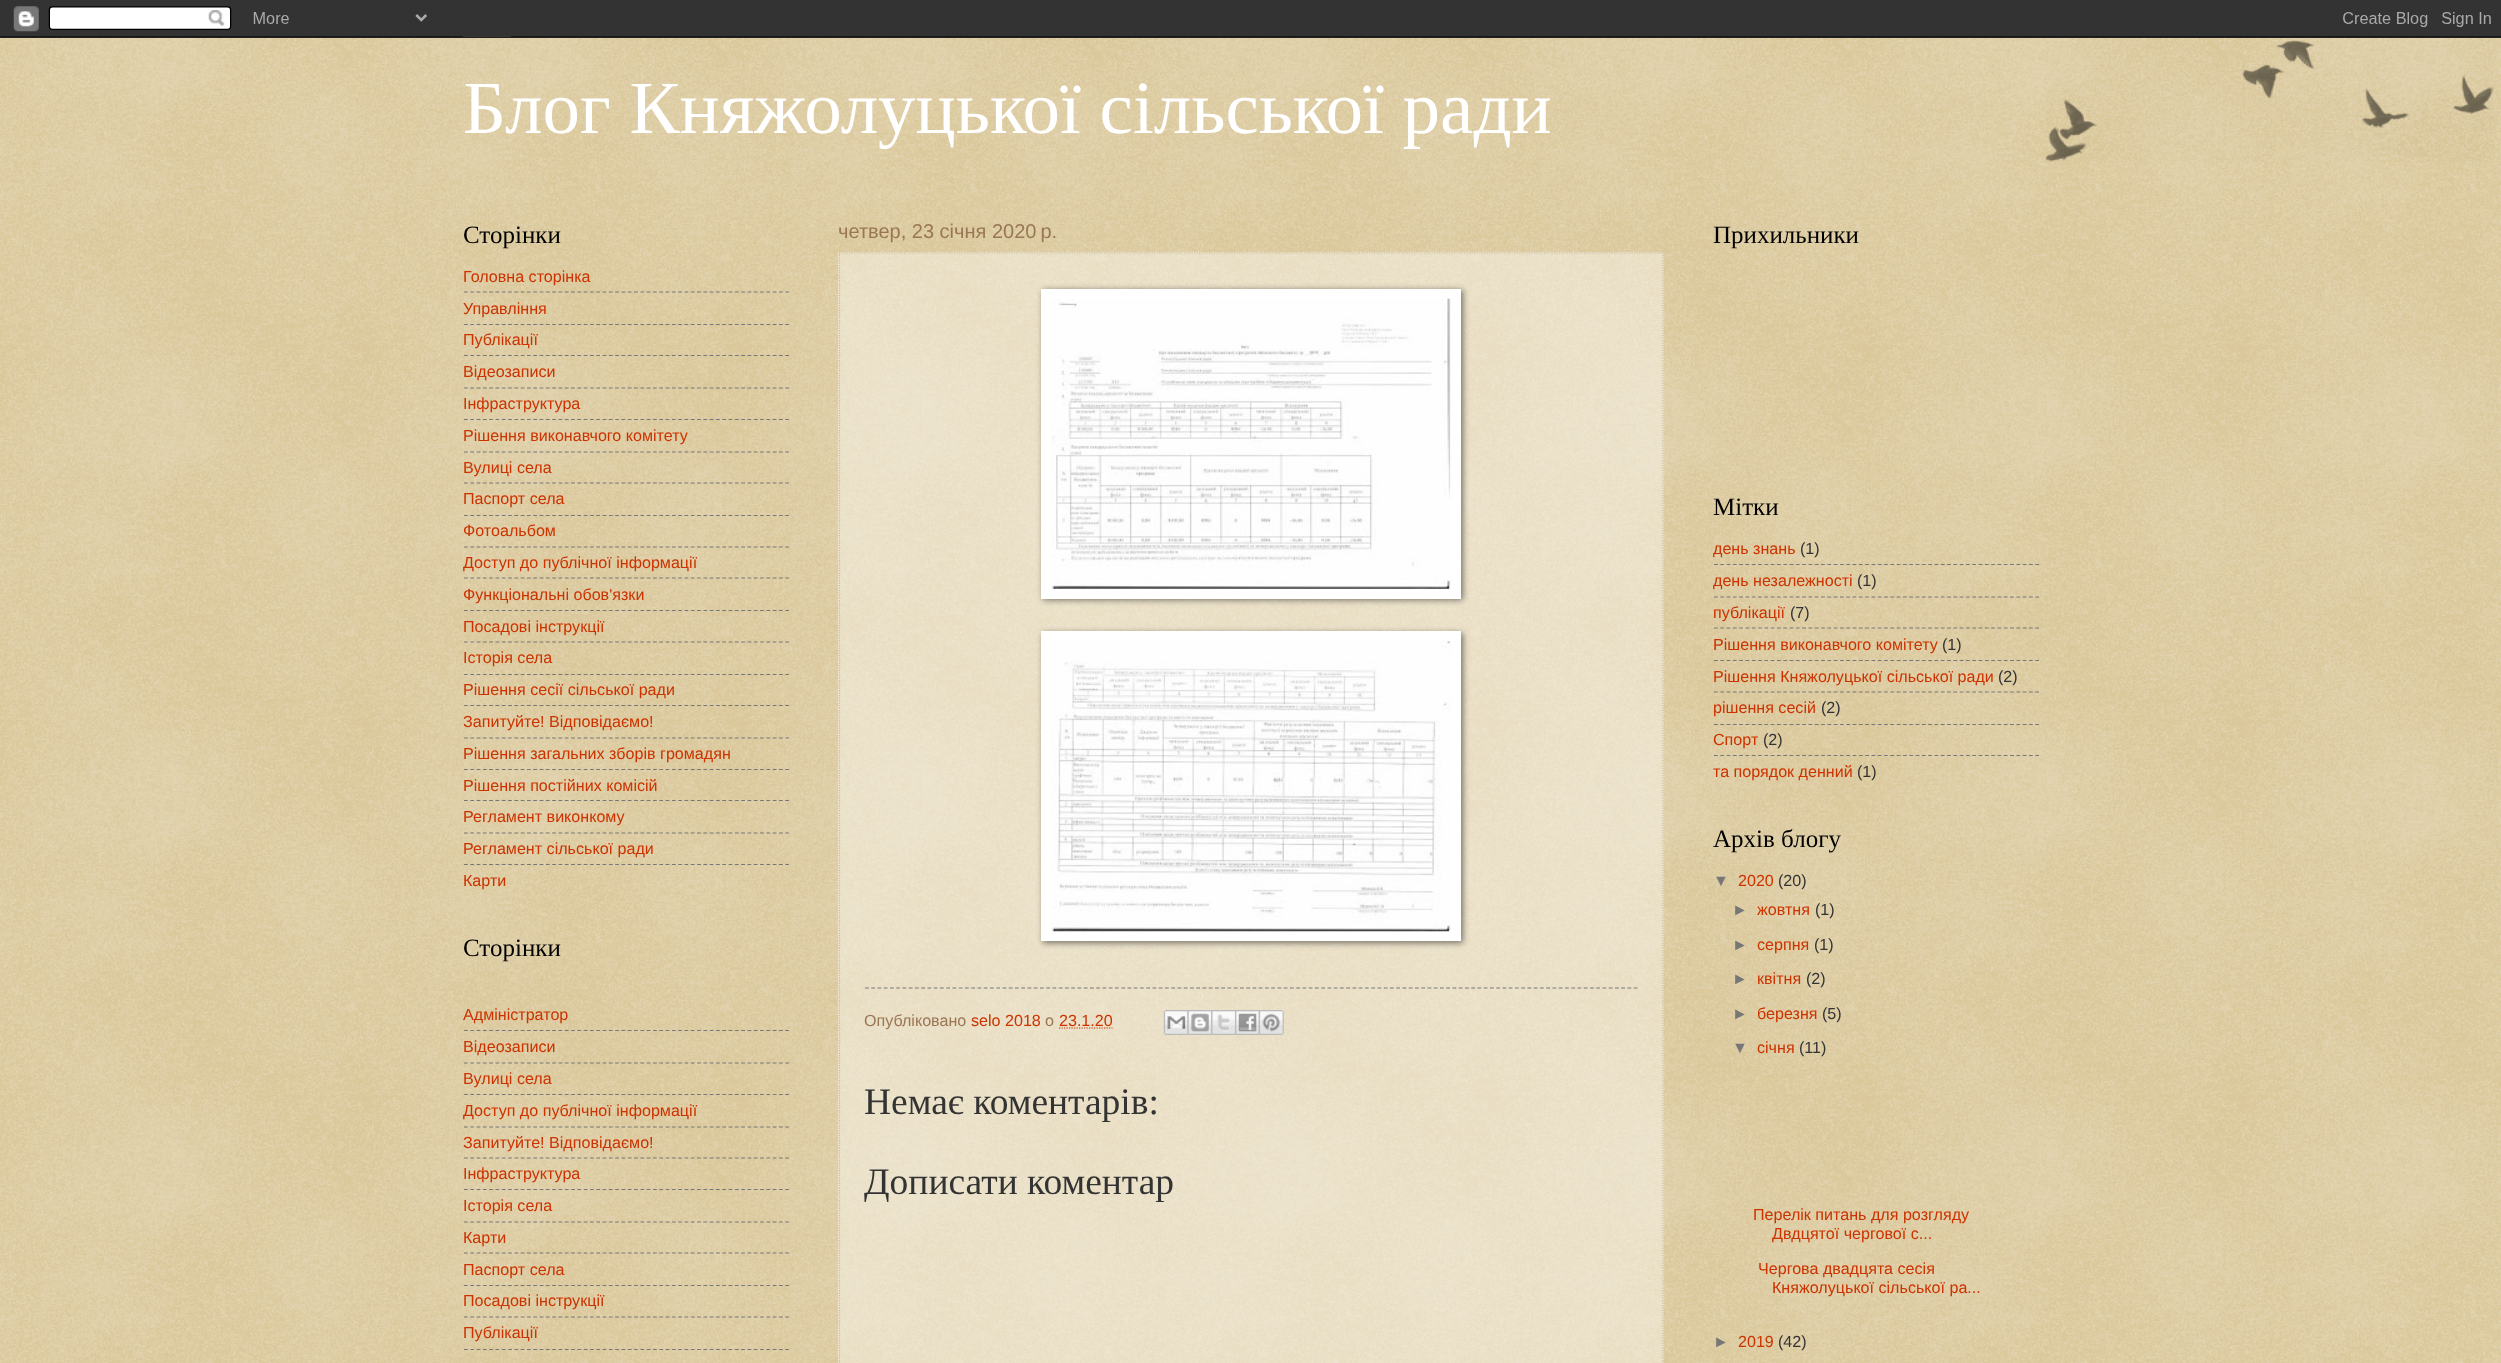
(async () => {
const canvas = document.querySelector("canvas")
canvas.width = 2501
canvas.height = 1363
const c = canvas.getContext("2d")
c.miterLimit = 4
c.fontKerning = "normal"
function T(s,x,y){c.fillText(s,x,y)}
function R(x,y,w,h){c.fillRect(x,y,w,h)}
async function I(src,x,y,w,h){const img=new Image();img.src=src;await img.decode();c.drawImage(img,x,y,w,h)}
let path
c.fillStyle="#c0a154"
R(0,0,2501,1363)
await I("1.png",0,36,2501,1327)
await I("2.png",0,0,2501,38)
c.font="75px Liberation Serif"
c.fillStyle="#fff"
T("Блог Княжолуцької сільської ради",463,133)
c.font="25px Liberation Serif"
c.fillStyle="#000"
T("Сторінки",463,243)
c.font="16.1px Liberation Sans"
c.fillStyle="#c30"
T("Головна сторінка",463,282)
path = new Path2D("M464 292h325")
c.strokeStyle="#777"
c.lineWidth=1.2
c.setLineDash([3.75,2.55])
c.stroke(path)
T("Управління",463,314)
path = new Path2D("M464 324.5h325")
c.stroke(path)
T("Публікації",463,345)
path = new Path2D("M464 355.5h325")
c.stroke(path)
T("Відеозаписи",463,377)
path = new Path2D("M464 388h325")
c.stroke(path)
T("Інфраструктура",463,409)
path = new Path2D("M464 419.5h325")
c.stroke(path)
T("Рішення виконавчого комітету",463,441)
path = new Path2D("M464 452h325")
c.stroke(path)
T("Вулиці села",463,473)
path = new Path2D("M464 483h325")
c.stroke(path)
T("Паспорт села",463,504)
path = new Path2D("M464 515.5h325")
c.stroke(path)
T("Фотоальбом",463,536)
path = new Path2D("M464 547h325")
c.stroke(path)
T("Доступ до публічної інформації",463,568)
path = new Path2D("M464 578h325")
c.stroke(path)
T("Функціональні обов'язки",463,600)
path = new Path2D("M464 610.5h325")
c.stroke(path)
T("Посадові інструкції",463,632)
path = new Path2D("M464 642h325")
c.stroke(path)
T("Історія села",463,663)
path = new Path2D("M464 674.5h325")
c.stroke(path)
T("Рішення сесії сільської ради",463,695)
path = new Path2D("M464 705.5h325")
c.stroke(path)
T("Запитуйте! Відповідаємо!",463,727)
path = new Path2D("M464 738h325")
c.stroke(path)
T("Рішення загальних зборів громадян",463,759)
path = new Path2D("M464 769.5h325")
c.stroke(path)
T("Рішення постійних комісій",463,791)
path = new Path2D("M464 800.5h325")
c.stroke(path)
T("Регламент виконкому",463,822)
path = new Path2D("M464 833h325")
c.stroke(path)
T("Регламент сільської ради",463,854)
path = new Path2D("M464 864.5h325")
c.stroke(path)
T("Карти",463,886)
c.font="25px Liberation Serif"
c.fillStyle="#000"
T("Сторінки",463,956)
c.font="16.1px Liberation Sans"
c.fillStyle="#c30"
T("Адміністратор",463,1020)
path = new Path2D("M464 1030.5h325")
c.stroke(path)
T("Відеозаписи",463,1052)
path = new Path2D("M464 1063h325")
c.stroke(path)
T("Вулиці села",463,1084)
path = new Path2D("M464 1094.5h325")
c.stroke(path)
T("Доступ до публічної інформації",463,1116)
path = new Path2D("M464 1127h325")
c.stroke(path)
T("Запитуйте! Відповідаємо!",463,1148)
path = new Path2D("M464 1158h325")
c.stroke(path)
T("Інфраструктура",463,1179)
path = new Path2D("M464 1189.5h325")
c.stroke(path)
T("Історія села",463,1211)
path = new Path2D("M464 1222h325")
c.stroke(path)
T("Карти",463,1243)
path = new Path2D("M464 1253h325")
c.stroke(path)
T("Паспорт села",463,1275)
path = new Path2D("M464 1285.5h325")
c.stroke(path)
T("Посадові інструкції",463,1306)
path = new Path2D("M464 1317h325")
c.stroke(path)
T("Публікації",463,1338)
path = new Path2D("M464 1349.5h325")
c.stroke(path)
c.font="20px Liberation Sans"
c.fillStyle="#975"
T("четвер, 23 січня 2020 р.",838,238)
c.fillStyle="#ffffff66"
R(838,252,826,1111)
path = new Path2D("M839 253h825")
c.strokeStyle="#cb9"
c.setLineDash([1.25,1.25])
c.stroke(path)
path = new Path2D("M1663 252.5v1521.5")
c.stroke(path)
path = new Path2D("M839.5 252.5v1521.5")
c.stroke(path)
c.fillStyle="#00000080"
c.filter="blur(3px)"
c.beginPath()
c.rect(1043,290,420,310)
c.fill()
c.filter="none"
c.fillStyle="#fff"
R(1041,289,420,310)
await I("3.png",1051,298,400,291)
c.fillStyle="#00000080"
c.filter="blur(3px)"
c.beginPath()
c.rect(1043,633,420,310)
c.fill()
c.filter="none"
c.fillStyle="#fff"
R(1041,631,420,310)
await I("4.png",1051,641,400,291)
path = new Path2D("M865 988h772.5")
c.strokeStyle="#777"
c.setLineDash([3.75,2.5])
c.stroke(path)
c.font="16.1px Liberation Sans"
c.fillStyle="#975"
T("Опубліковано",864,1026)
c.fillStyle="#c30"
T("selo 2018",971,1026)
c.fillStyle="#975"
T("о",1045,1026)
c.fillStyle="#c30"
T("23.1.20",1059,1026)
path = new Path2D("M1059 1028h53.5")
c.strokeStyle="#c30"
c.setLineDash([1.25,1.25])
c.stroke(path)
await I("5.png",1163,1010,25,25)
await I("6.png",1187,1010,25,25)
await I("7.png",1211,1010,24,25)
await I("8.png",1235,1010,24,25)
await I("9.png",1258,1010,26,25)
c.font="37.5px Liberation Serif"
c.fillStyle="#333"
T("Немає коментарів:",864,1114)
T("Дописати коментар",864,1194)
c.font="25px Liberation Serif"
c.fillStyle="#000"
T("Прихильники",1713,243)
T("Мітки",1713,515)
c.font="16.1px Liberation Sans"
c.fillStyle="#c30"
T("день знань",1713,554)
c.fillStyle="#333"
T("(1)",1800,554)
path = new Path2D("M1714 564.5h325")
c.strokeStyle="#777"
c.setLineDash([3.75,2.55])
c.stroke(path)
c.fillStyle="#c30"
T("день незалежності",1713,586)
c.fillStyle="#333"
T("(1)",1857,586)
path = new Path2D("M1714 597h325")
c.stroke(path)
c.fillStyle="#c30"
T("публікації",1713,618)
c.fillStyle="#333"
T("(7)",1790,618)
path = new Path2D("M1714 628h325")
c.stroke(path)
c.fillStyle="#c30"
T("Рішення виконавчого комітету",1713,650)
c.fillStyle="#333"
T("(1)",1942,650)
path = new Path2D("M1714 660.5h325")
c.stroke(path)
c.fillStyle="#c30"
T("Рішення Княжолуцької сільської ради",1713,682)
c.fillStyle="#333"
T("(2)",1998,682)
path = new Path2D("M1714 692h325")
c.stroke(path)
c.fillStyle="#c30"
T("рішення сесій",1713,713)
c.fillStyle="#333"
T("(2)",1821,713)
path = new Path2D("M1714 724.5h325")
c.stroke(path)
c.fillStyle="#c30"
T("Спорт",1713,745)
c.fillStyle="#333"
T("(2)",1763,745)
path = new Path2D("M1714 755.5h325")
c.stroke(path)
c.fillStyle="#c30"
T("та порядок денний",1713,777)
c.fillStyle="#333"
T("(1)",1857,777)
c.font="25px Liberation Serif"
c.fillStyle="#000"
T("Архів блогу",1713,847)
c.font="16.1px Liberation Sans"
c.fillStyle="#777"
T("▼",1713,886)
c.fillStyle="#c30"
T("2020",1738,886)
c.fillStyle="#333"
T("(20)",1778,886)
c.fillStyle="#777"
T("►",1732,915)
c.fillStyle="#c30"
T("жовтня",1757,915)
c.fillStyle="#333"
T("(1)",1815,915)
c.fillStyle="#777"
T("►",1732,950)
c.fillStyle="#c30"
T("серпня",1757,950)
c.fillStyle="#333"
T("(1)",1814,950)
c.fillStyle="#777"
T("►",1732,984)
c.fillStyle="#c30"
T("квітня",1757,984)
c.fillStyle="#333"
T("(2)",1806,984)
c.fillStyle="#777"
T("►",1732,1019)
c.fillStyle="#c30"
T("березня",1757,1019)
c.fillStyle="#333"
T("(5)",1822,1019)
c.fillStyle="#777"
T("▼",1732,1053)
c.fillStyle="#c30"
T("січня",1757,1053)
c.fillStyle="#333"
T("(11)",1799,1053)
c.fillStyle="#c30"
T("Перелік питань для розгляду",1753,1220)
T("Двдцятої чергової с...",1772,1239)
T("Чергова двадцята сесія",1758,1274)
T("Княжолуцької сільської ра...",1772,1293)
c.fillStyle="#777"
T("►",1713,1347)
c.fillStyle="#c30"
T("2019",1738,1347)
c.fillStyle="#333"
T("(42)",1778,1347)
await I("10.png",2045,40,449,122)
})()
